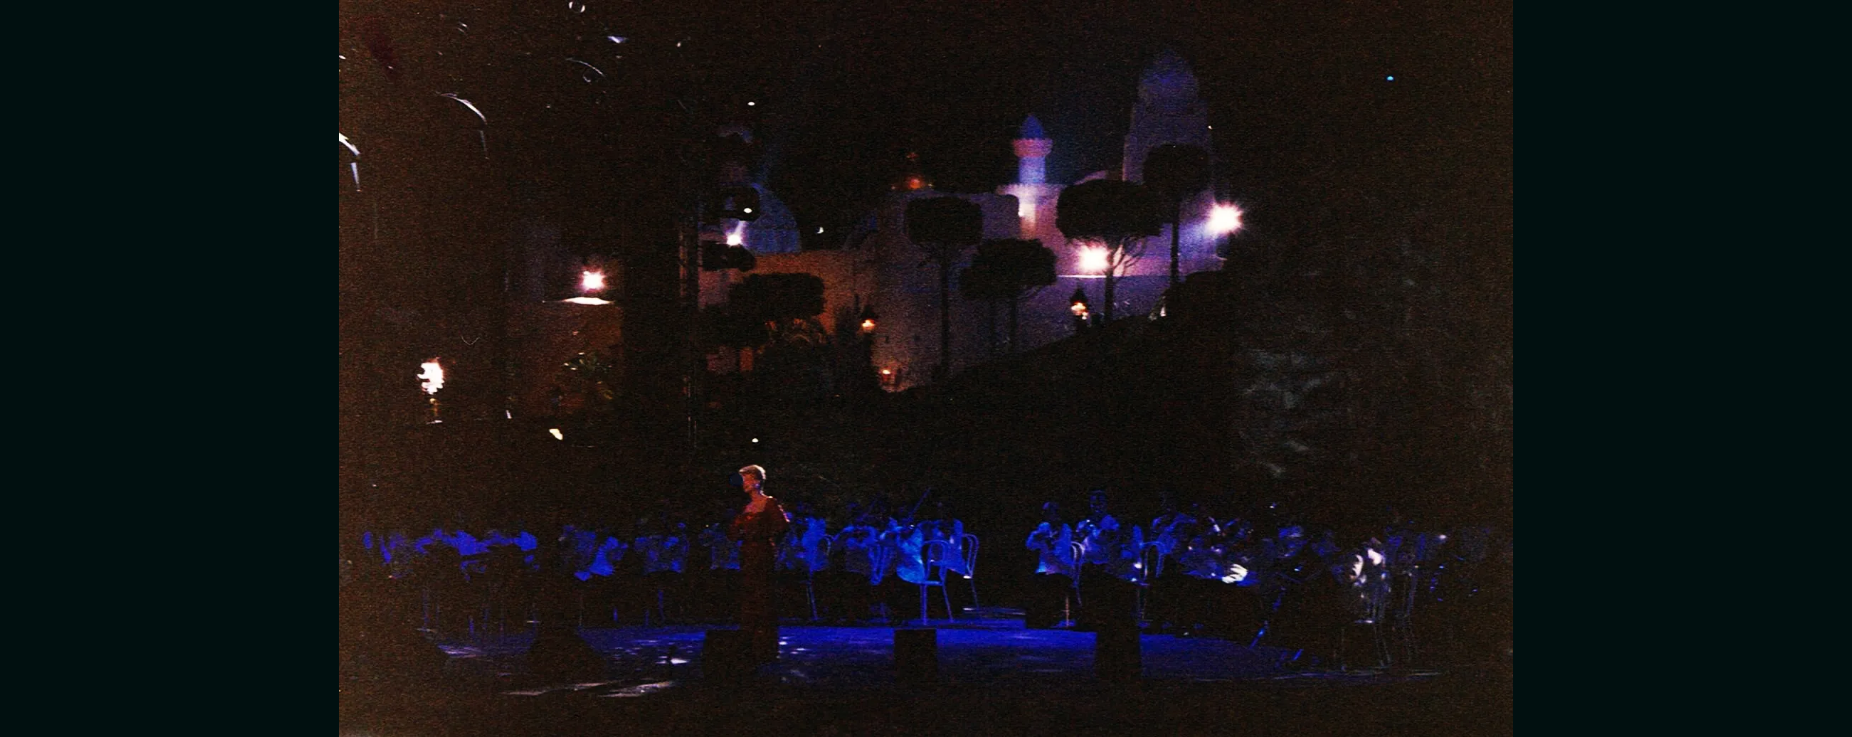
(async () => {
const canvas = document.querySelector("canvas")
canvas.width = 1852
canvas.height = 737
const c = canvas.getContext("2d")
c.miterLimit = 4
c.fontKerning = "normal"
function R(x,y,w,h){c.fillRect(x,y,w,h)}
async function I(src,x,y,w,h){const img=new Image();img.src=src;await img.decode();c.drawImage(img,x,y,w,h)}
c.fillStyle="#011010"
R(0,0,1852,737)
await I("1.png",339,0,1174,737)
})()
